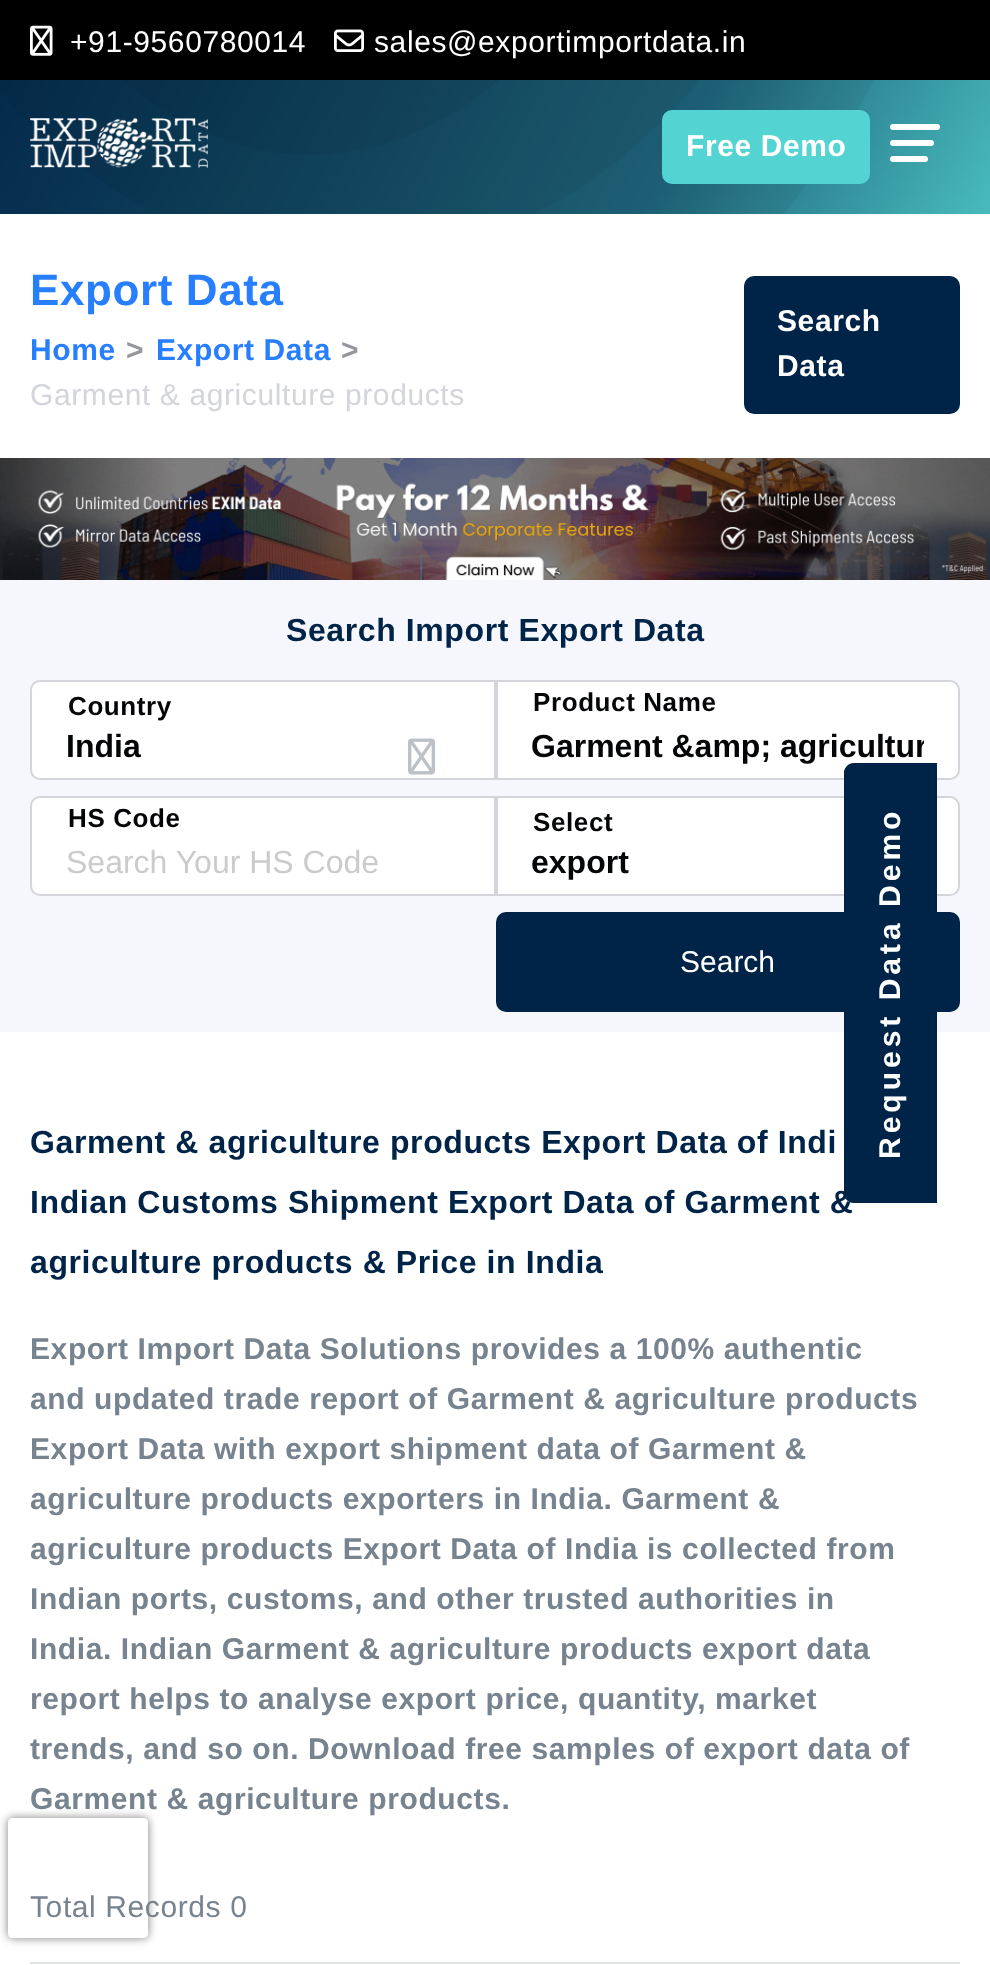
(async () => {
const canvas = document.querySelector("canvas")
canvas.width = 990
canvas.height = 1965
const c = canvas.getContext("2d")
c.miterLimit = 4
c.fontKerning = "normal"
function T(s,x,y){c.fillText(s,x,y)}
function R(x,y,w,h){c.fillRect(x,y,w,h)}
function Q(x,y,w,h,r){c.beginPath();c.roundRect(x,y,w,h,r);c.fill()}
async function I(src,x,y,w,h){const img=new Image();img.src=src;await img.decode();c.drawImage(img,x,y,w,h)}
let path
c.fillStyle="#fff"
R(0,0,990,1965)
c.fillStyle="#000"
R(0,0,990,80)
await I("1.png",30,25,23,31)
c.letterSpacing="0.6px"
c.font="30px Liberation Sans"
c.fillStyle="#fff"
T("+91-9560780014",70,52)
await I("2.png",334,29,30,23)
T("sales@exportimportdata.in",374,52)
await I("3.png",0,80,990,134)
await I("4.png",30,118,178,50)
c.fillStyle="#53d3d1"
c.beginPath()
c.roundRect(664,112,204,70,8)
c.fill()
c.strokeStyle="#53d3d1"
c.lineWidth=4
c.stroke()
c.font="bold 30px Liberation Sans"
c.fillStyle="#fff"
T("Free Demo",686,156)
Q(890,124,50,6,3)
Q(890,140,44,6,3)
Q(890,156,38,6,3)
c.font="bold 44px Liberation Sans"
c.fillStyle="#277fff"
T("Export Data",30,305)
c.font="bold 30px Liberation Sans"
T("Home",30,360)
c.fillStyle="#94969c"
T(">",126,360)
c.fillStyle="#277fff"
T("Export Data",156,360)
c.fillStyle="#94969c"
T(">",341,360)
c.font="30px Liberation Sans"
c.fillStyle="#d3d5db"
T("Garment & agriculture products",30,405)
c.fillStyle="#002447"
c.beginPath()
c.roundRect(746,278,212,134,8)
c.fill()
c.strokeStyle="#002447"
c.stroke()
c.font="bold 30px Liberation Sans"
c.fillStyle="#fff"
T("Search",777,331)
T("Data",777,376)
await I("5.png",0,458,990,122)
c.fillStyle="#f5f7fc"
R(0,580,990,452)
c.font="bold 32px Liberation Sans"
c.fillStyle="#002447"
T("Search Import Export Data",286,641)
c.fillStyle="#fff"
c.beginPath()
c.roundRect(31,681,464,98,[9,0,0,9])
c.fill()
c.strokeStyle="#d3d5db"
c.lineWidth=2
c.stroke()
c.font="bold 26px Liberation Sans"
c.fillStyle="#040507"
T("Country",68,715)
c.letterSpacing="0px"
c.font="bold 32px Liberation Sans"
T("India",66,757)
await I("6.png",408,738,27,37)
c.fillStyle="#fff"
c.beginPath()
c.roundRect(497,681,462,98,[0,9,9,0])
c.fill()
c.stroke()
c.letterSpacing="0.6px"
c.font="bold 26px Liberation Sans"
c.fillStyle="#040507"
T("Product Name",533,711)
c.save()
c.beginPath()
c.rect(532,728,392,36)
c.clip()
c.letterSpacing="0px"
c.font="bold 32px Liberation Sans"
T("Garment &amp; agricultur",531,757)
c.restore()
c.fillStyle="#fff"
c.beginPath()
c.roundRect(31,797,464,98,[9,0,0,9])
c.fill()
c.stroke()
c.fillStyle="#040507"
T("HS Code",68,827)
c.letterSpacing="0px"
c.font="32px Liberation Sans"
c.fillStyle="#cbcbcb"
T("Search Your HS Code",66,873)
c.fillStyle="#fff"
c.beginPath()
c.roundRect(497,797,462,98,[0,9,9,0])
c.fill()
c.stroke()
c.letterSpacing="0.6px"
c.font="bold 26px Liberation Sans"
c.fillStyle="#040507"
T("Select",533,831)
c.letterSpacing="0px"
c.font="bold 32px Liberation Sans"
T("export",531,873)
c.fillStyle="#002447"
Q(496,912,464,100,10)
c.font="30px Liberation Sans"
c.fillStyle="#fff"
T("Search",680,972)
c.fillStyle="#002447"
path = new Path2D("M844 1193v-420c0-5 4-10 10-10h83v440h-83c-6 0-10-5-10-10z")
c.fill(path)
path = new Path2D("M846 1192.5v-419c0-4.5 3.5-8 8-8h81v435h-81c-4.5 0-8-3.5-8-8z")
c.strokeStyle="#002447"
c.lineWidth=4
c.stroke(path)
c.letterSpacing="4px"
c.font="bold 30px Liberation Sans"
c.fillStyle="#fff"
c.save()
c.translate(900,1159)
c.rotate(-90 * Math.PI / 180)
c.fillText("Request Data Demo",0,0)
c.restore()
c.letterSpacing="0.6px"
c.font="bold 32px Liberation Sans"
c.fillStyle="#002447"
T("Garment & agriculture products Export Data of Indi",30,1153)
T("Indian Customs Shipment Export Data of Garment &",30,1213)
T("agriculture products & Price in India",30,1273)
c.font="bold 30px Liberation Sans"
c.fillStyle="#77838e"
T("Export Import Data Solutions provides a 100% authentic",30,1359)
T("and updated trade report of Garment & agriculture products",30,1409)
T("Export Data with export shipment data of Garment &",30,1459)
T("agriculture products exporters in India. Garment &",30,1509)
T("agriculture products Export Data of India is collected from",30,1559)
T("Indian ports, customs, and other trusted authorities in",30,1609)
T("India. Indian Garment & agriculture products export data",30,1659)
T("report helps to analyse export price, quantity, market",30,1709)
T("trends, and so on. Download free samples of export data of",30,1759)
T("Garment & agriculture products.",30,1809)
c.font="30px Liberation Sans"
T("Total Records 0",30,1917)
c.fillStyle="#dee2e6"
R(30,1962,930,2)
c.save()
path = new Path2D("M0 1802h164v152h-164zm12 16h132c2 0 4 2 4 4v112c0 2-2 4-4 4h-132c-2 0-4-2-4-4v-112c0-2 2-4 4-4z")
c.clip(path,"evenodd")
c.fillStyle="#808080"
c.filter="blur(5px)"
c.beginPath()
c.roundRect(8,1818,140,120,4)
c.fill()
c.filter="none"
c.restore()
})()
